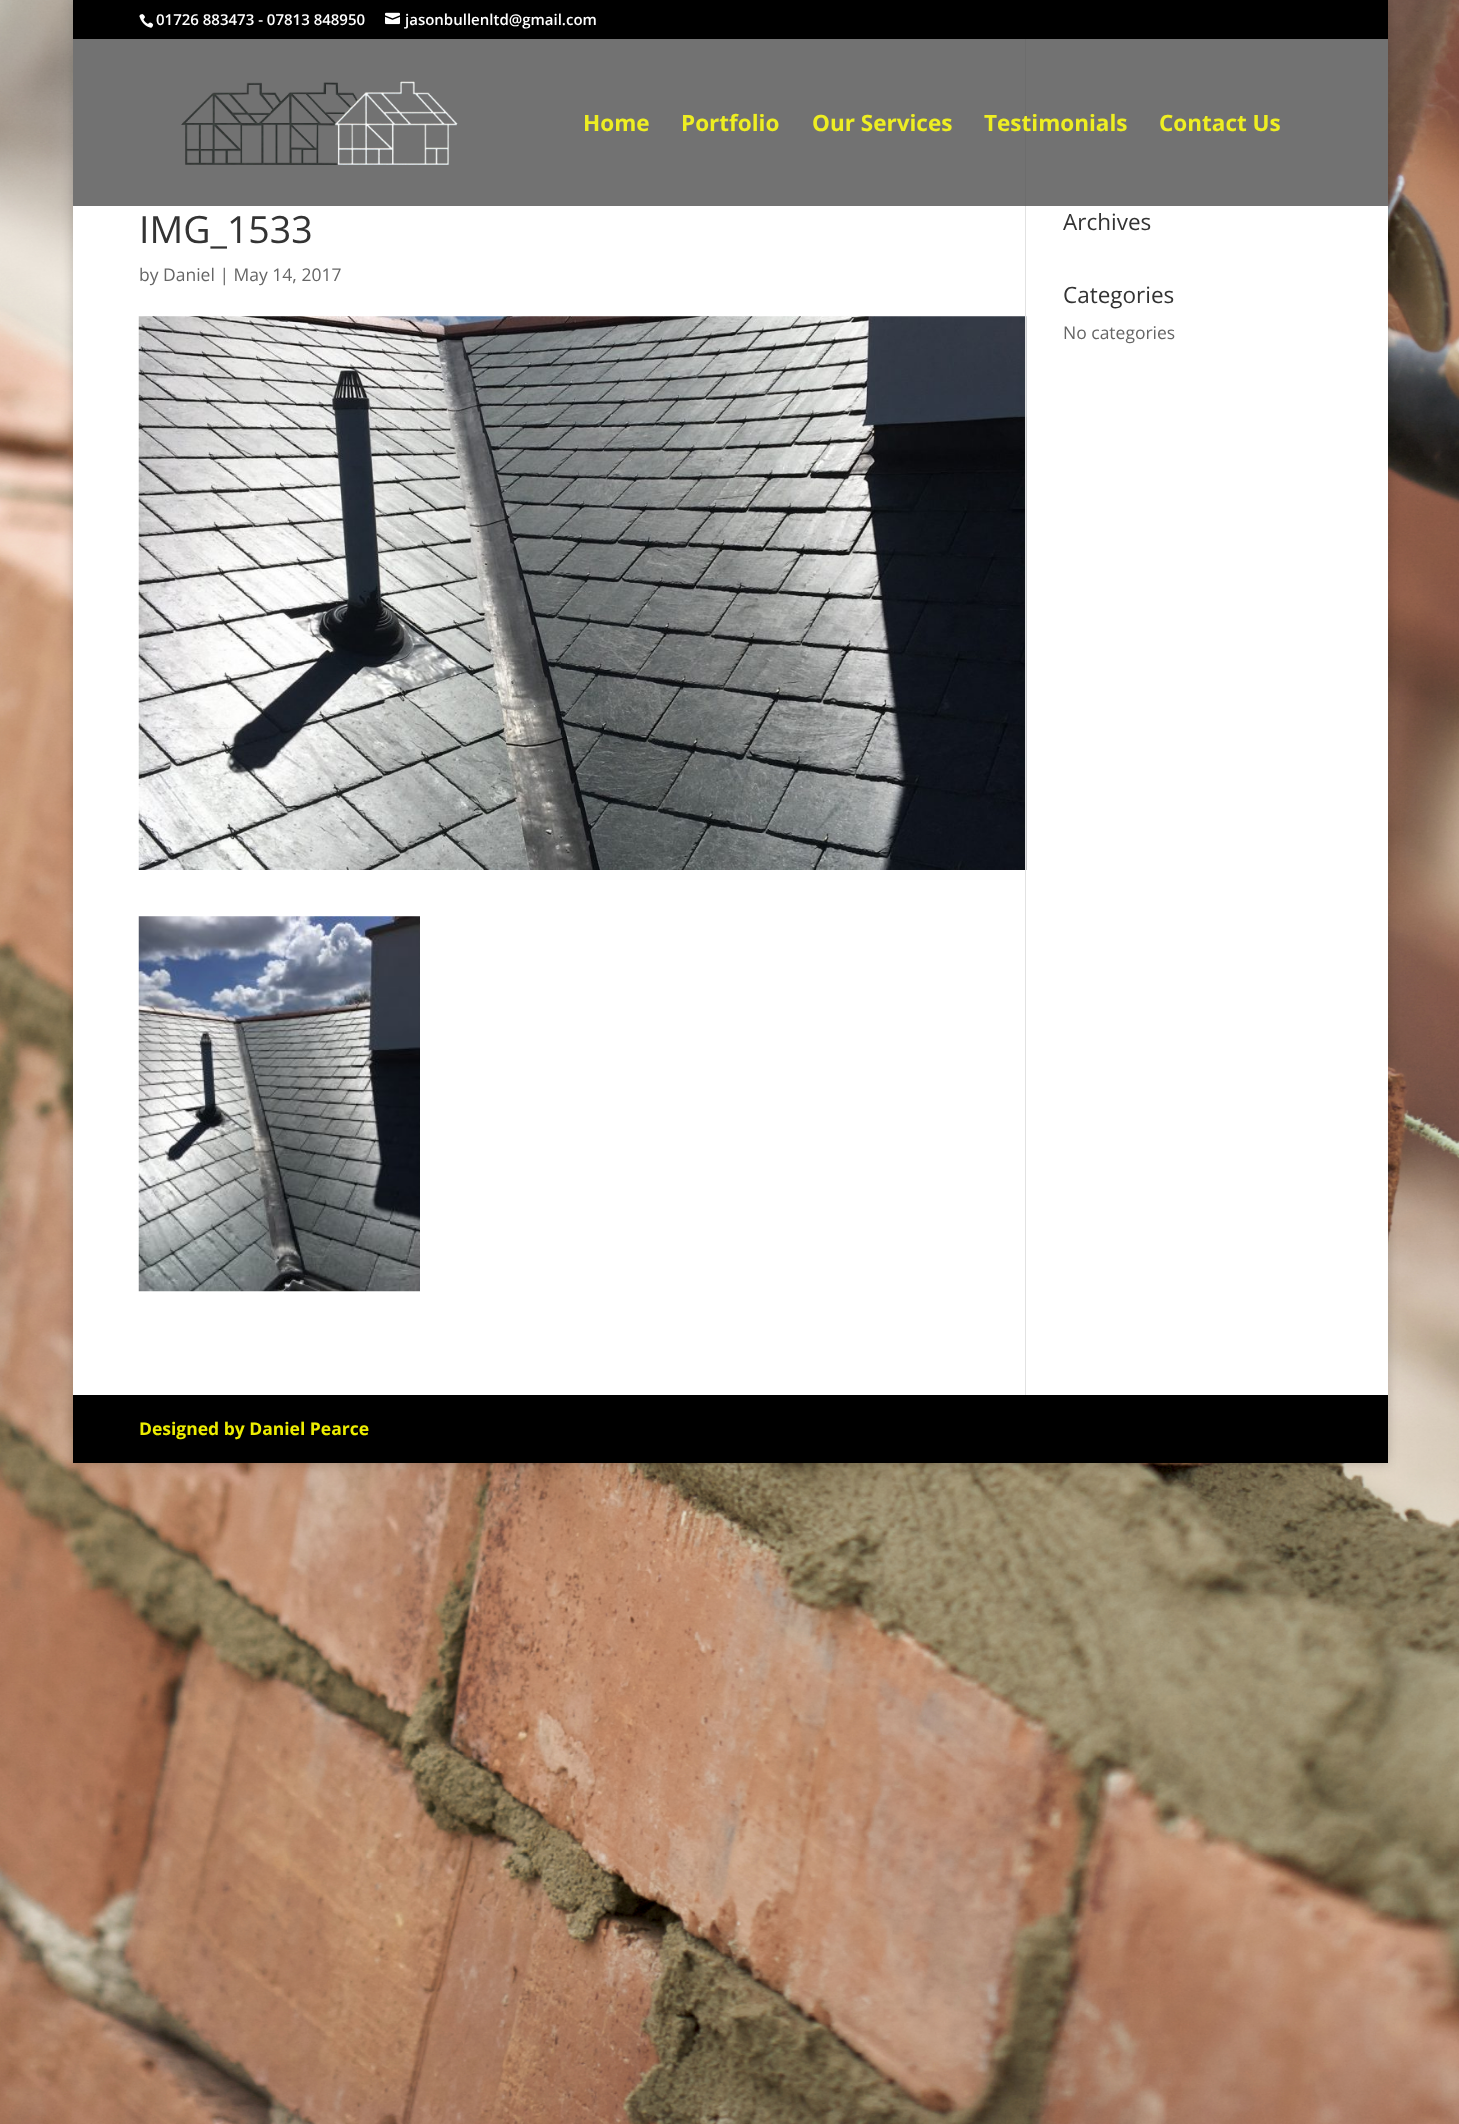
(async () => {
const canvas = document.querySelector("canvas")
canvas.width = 1459
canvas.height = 2124
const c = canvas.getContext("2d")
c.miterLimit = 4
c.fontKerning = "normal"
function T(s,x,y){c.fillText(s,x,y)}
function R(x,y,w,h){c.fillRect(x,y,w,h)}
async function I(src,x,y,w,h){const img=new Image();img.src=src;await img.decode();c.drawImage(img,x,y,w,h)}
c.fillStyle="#fff"
R(0,0,1459,2124)
await I("1.png",0,0,1459,2124)
c.fillStyle="#00000033"
c.filter="blur(6px)"
c.beginPath()
c.rect(73,0,1315,1463)
c.fill()
c.filter="none"
c.fillStyle="#000"
R(73,0,1315,39)
await I("2.png",139,14,15,14)
c.font="600 15px Open Sans"
c.fillStyle="#fff"
T("01726 883473 - 07813 848950",156,25)
await I("3.png",385,12,15,13)
T("jasonbullenltd@gmail.com",405,25)
R(73,39,1315,1356)
await I("5.png",138,316,889,554)
c.fillStyle="#e2e2e2"
R(1025,39,1,1356)
c.fillStyle="#515151cf"
R(73,39,1315,167)
await I("4.png",181,81,277,84)
c.font="bold 22.5px Open Sans"
c.fillStyle="#ee2"
T("Home",583,131)
T("Portfolio",681,131)
T("Our Services",812,131)
T("Testimonials",984,131)
T("Contact Us",1159,131)
c.font="37.5px Open Sans"
c.fillStyle="#333"
T("IMG_1533",139,243)
c.font="17.5px Open Sans"
c.fillStyle="#666"
T("by Daniel | May 14, 2017",139,281)
await I("6.png",138,916,282,376)
c.font="22.5px Open Sans"
c.fillStyle="#333"
T("Archives",1063,230)
T("Categories",1063,303)
c.font="17.5px Open Sans"
c.fillStyle="#666"
T("No categories",1063,339)
c.fillStyle="#000"
R(73,1395,1315,68)
c.font="bold 17.5px Open Sans"
c.fillStyle="#eded00"
T("Designed by Daniel Pearce",139,1435)
})()
